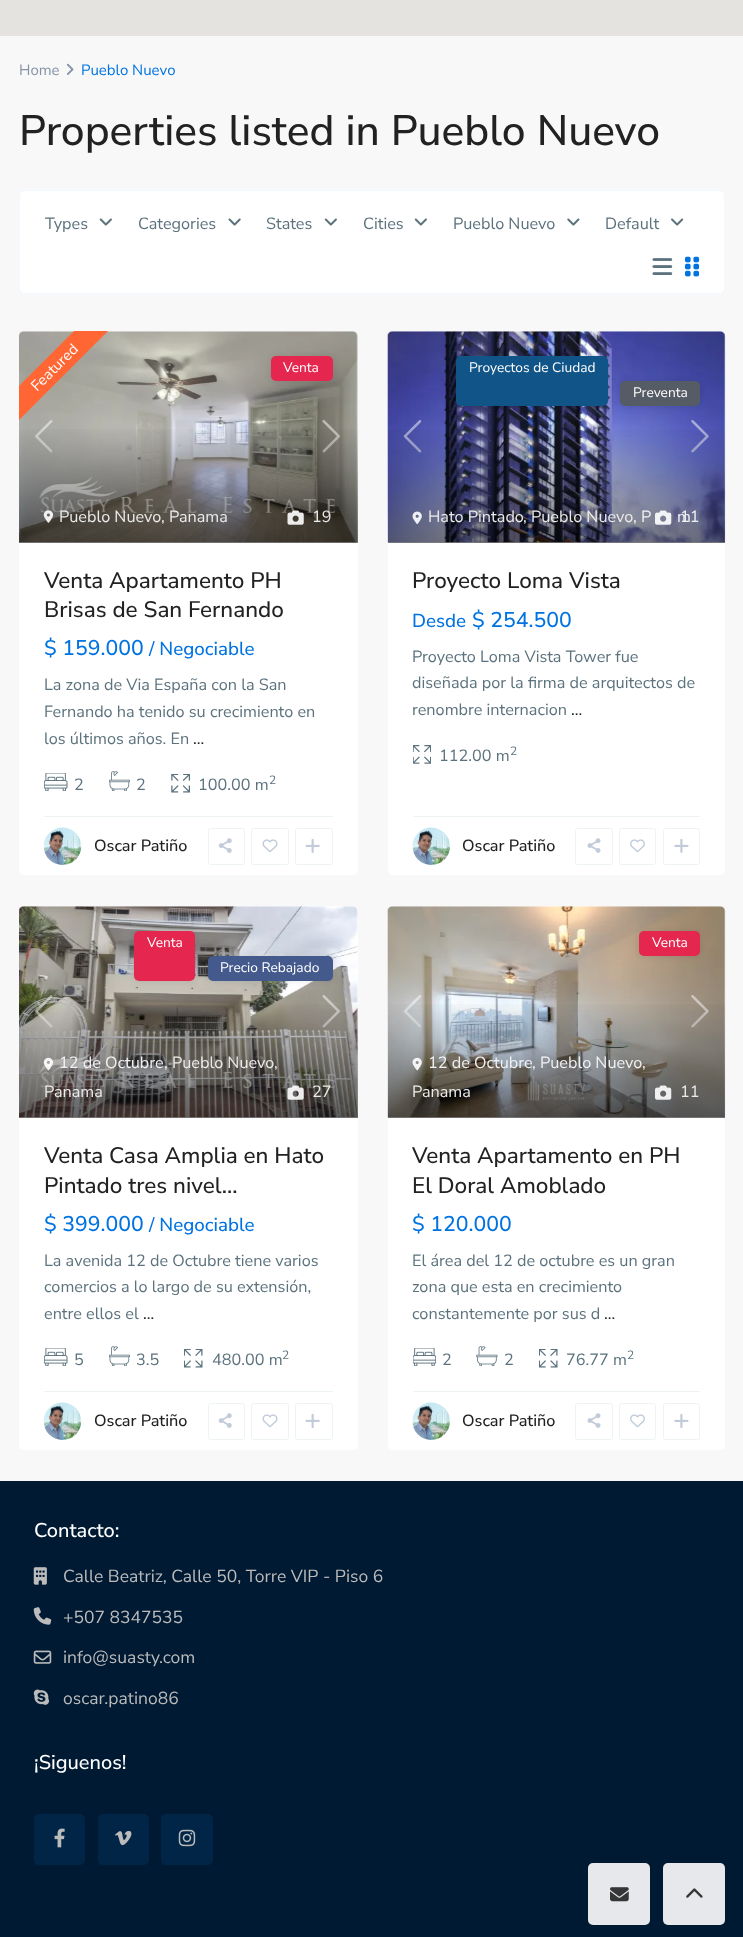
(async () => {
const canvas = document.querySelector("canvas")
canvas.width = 743
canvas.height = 1937
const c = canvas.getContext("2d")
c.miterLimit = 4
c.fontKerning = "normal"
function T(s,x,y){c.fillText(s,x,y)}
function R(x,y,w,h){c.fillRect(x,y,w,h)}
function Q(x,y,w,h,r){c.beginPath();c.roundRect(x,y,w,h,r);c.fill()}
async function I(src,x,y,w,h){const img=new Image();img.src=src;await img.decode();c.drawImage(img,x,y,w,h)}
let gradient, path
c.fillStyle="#f8f8f8"
R(0,0,743,1937)
c.fillStyle="#e5e3df"
R(0,0,743,36)
c.font="15px Nunito Sans"
c.fillStyle="#8593a9"
T("Home",19,75)
await I("1.png",66,63,8,12)
c.fillStyle="#0073e1"
T("Pueblo Nuevo",81,75)
c.font="500 42.5px Nunito Sans"
c.fillStyle="#222"
T("Properties listed in Pueblo Nuevo",19,145)
c.fillStyle="#fff"
c.beginPath()
c.roundRect(19.5,190.5,705,103,4.5)
c.fill()
c.strokeStyle="#f1f8ff"
c.stroke()
c.font="16.25px Nunito Sans"
c.fillStyle="#5c727d"
T("Types",45,229)
await I("2.png",99,218,13,8)
T("Categories",138,229)
await I("3.png",228,218,13,8)
T("States",266,229)
await I("2.png",324,218,13,8)
T("Cities",363,229)
await I("2.png",414,218,13,8)
T("Pueblo Nuevo",453,229)
await I("4.png",567,218,13,8)
T("Default",605,229)
await I("5.png",671,218,13,8)
await I("6.png",652,258,21,17)
await I("7.png",685,256,15,21)
c.fillStyle="#fff"
Q(19,331,339,544,5)
await I("8.png",19,331,339,212)
await I("9.png",35,420,18,33)
await I("10.png",322,420,18,33)
c.fillStyle="#f63"
path = new Path2D("M108 331l-89 89v-34l55-55z")
c.fill(path)
c.font="15px Nunito Sans"
c.fillStyle="#fff"
c.save()
c.translate(37,392)
c.rotate(-45 * Math.PI / 180)
c.fillText("Featured",0,0)
c.restore()
c.fillStyle="#0000001a"
c.filter="blur(3px)"
c.beginPath()
c.roundRect(271,356,62,25,5)
c.fill()
c.filter="none"
c.fillStyle="#e5274f"
Q(271,356,62,25,5)
c.font="13.75px Nunito Sans"
c.fillStyle="#fff"
T("Venta",283,372)
gradient = c.createLinearGradient(188,543,188,331)
gradient.addColorStop(0,"#00000080")
gradient.addColorStop(.56,"#00000000")
c.fillStyle = gradient
R(19,429,339,114)
await I("11.png",43,510,11,13)
c.font="16.25px Nunito Sans"
c.fillStyle="#ebebea"
T("Pueblo Nuevo",59,522)
T(",",161,522)
T("Panama",169,522)
await I("12.png",287,510,17,15)
T("19",312,522)
c.font="500 22.5px Nunito Sans"
c.fillStyle="#222"
T("Venta Apartamento PH",44,588)
T("Brisas de San Fernando",44,617)
c.font="500 21.25px Nunito Sans"
c.fillStyle="#0073e1"
T("$ 159.000",44,655)
c.font="500 18.75px Nunito Sans"
T("/ Negociable",149,655)
c.font="16.25px Nunito Sans"
c.fillStyle="#5c727d"
T("La zona de Via España con la San",44,690)
T("Fernando ha tenido su crecimiento en",44,717)
T("los últimos años. En",44,744)
c.fillStyle="#222"
T("...",193,744)
await I("13.png",44,773,24,18)
c.fillStyle="#5c727d"
T("2",74,790)
await I("14.png",109,771,21,20)
T("2",136,790)
await I("15.png",171,774,19,19)
T("100.00 m",198,790)
c.font="12px Nunito Sans"
T("2",269,784)
c.fillStyle="#eef3f6"
R(44,816,289,1)
await I("16.png",43,827,39,38)
c.font="500 16.25px Nunito Sans"
c.fillStyle="#222"
T("Oscar Patiño",94,851)
c.beginPath()
c.roundRect(208.5,828.5,36,36,2)
c.strokeStyle="#eef3f6"
c.stroke()
await I("17.png",218,838,14,15)
c.beginPath()
c.roundRect(251.5,828.5,37,36,2)
c.stroke()
await I("18.png",262,839,16,14)
c.beginPath()
c.roundRect(295.5,828.5,37,36,2)
c.stroke()
await I("19.png",305,838,15,15)
c.fillStyle="#fff"
Q(388,331,337,544,5)
await I("20.png",387,331,339,212)
await I("21.png",403,420,19,33)
await I("22.png",691,420,18,33)
c.fillStyle="#0000001a"
c.filter="blur(3px)"
c.beginPath()
c.roundRect(456,356,152,50,5)
c.fill()
c.filter="none"
c.fillStyle="#158"
Q(456,356,152,50,5)
c.font="13.75px Nunito Sans"
c.fillStyle="#fff"
T("Proyectos de Ciudad",469,372)
c.fillStyle="#0000001a"
c.filter="blur(3px)"
c.beginPath()
c.roundRect(620,381,80,25,5)
c.fill()
c.filter="none"
c.fillStyle="#565c65"
Q(620,381,80,25,5)
c.fillStyle="#fff"
T("Preventa",633,397)
gradient = c.createLinearGradient(556,543,556,331)
gradient.addColorStop(0,"#00000080")
gradient.addColorStop(.56,"#00000000")
c.fillStyle = gradient
R(388,429,337,114)
await I("23.png",412,511,10,13)
c.font="16.25px Nunito Sans"
c.fillStyle="#ebebea"
T("Hato Pintado",428,522)
T(",",523,522)
T("Pueblo Nuevo",531,522)
c.fillStyle="#f0f1f4"
T(",",633,522)
T("P",641,522)
T("11",680,522)
T("m",677,522)
await I("24.png",655,510,17,15)
c.font="500 22.5px Nunito Sans"
c.fillStyle="#222"
T("Proyecto Loma Vista",412,588)
c.font="500 18.75px Nunito Sans"
c.fillStyle="#0073e1"
T("Desde",412,627)
c.font="500 21.25px Nunito Sans"
T("$ 254.500",472,627)
c.font="16.25px Nunito Sans"
c.fillStyle="#5c727d"
T("Proyecto Loma Vista Tower fue",412,662)
T("diseñada por la firma de arquitectos de",412,688)
T("renombre internacion",412,715)
c.fillStyle="#222"
T("...",571,715)
await I("25.png",413,745,18,19)
c.fillStyle="#5c727d"
T("112.00 m",439,761)
c.font="12px Nunito Sans"
T("2",510,755)
c.fillStyle="#eef3f6"
R(413,816,287,1)
await I("26.png",412,827,38,38)
c.font="500 16.25px Nunito Sans"
c.fillStyle="#222"
T("Oscar Patiño",462,851)
c.beginPath()
c.roundRect(575.5,828.5,37,36,2)
c.stroke()
await I("27.png",587,838,14,15)
c.beginPath()
c.roundRect(619.5,828.5,36,36,2)
c.stroke()
await I("28.png",630,839,15,14)
c.beginPath()
c.roundRect(663.5,828.5,36,36,2)
c.stroke()
await I("29.png",674,838,15,15)
c.fillStyle="#fff"
Q(19,906,339,544,5)
await I("30.png",19,906,339,212)
await I("31.png",35,995,18,33)
await I("32.png",322,995,18,33)
c.fillStyle="#0000001a"
c.filter="blur(3px)"
c.beginPath()
c.roundRect(134,931,61,50,5)
c.fill()
c.filter="none"
c.fillStyle="#e5274f"
Q(134,931,61,50,5)
c.font="13.75px Nunito Sans"
c.fillStyle="#fff"
T("Venta",147,947)
c.fillStyle="#0000001a"
c.filter="blur(3px)"
c.beginPath()
c.roundRect(208,956,125,25,5)
c.fill()
c.filter="none"
c.fillStyle="#445a8c"
Q(208,956,125,25,5)
c.fillStyle="#fff"
T("Precio Rebajado",220,972)
gradient = c.createLinearGradient(188,1118,188,906)
gradient.addColorStop(0,"#00000080")
gradient.addColorStop(.56,"#00000000")
c.fillStyle = gradient
R(19,1004,339,114)
await I("33.png",43,1057,11,14)
c.font="16.25px Nunito Sans"
c.fillStyle="#f0f1f4"
T("12 de Octubre",59,1068)
T(",",164,1068)
c.fillStyle="#ebebea"
T("Pueblo Nuevo",172,1068)
T(",",274,1068)
T("Panama",44,1097)
await I("34.png",287,1085,17,15)
T("27",312,1097)
c.font="500 22.5px Nunito Sans"
c.fillStyle="#222"
T("Venta Casa Amplia en Hato",44,1163)
T("Pintado tres nivel...",44,1193)
c.font="500 21.25px Nunito Sans"
c.fillStyle="#0073e1"
T("$ 399.000",44,1231)
c.font="500 18.75px Nunito Sans"
T("/ Negociable",149,1231)
c.font="16.25px Nunito Sans"
c.fillStyle="#5c727d"
T("La avenida 12 de Octubre tiene varios",44,1266)
T("comercios a lo largo de su extensión,",44,1292)
T("entre ellos el",44,1319)
c.fillStyle="#222"
T("...",143,1319)
await I("13.png",44,1348,24,18)
c.fillStyle="#5c727d"
T("5",74,1365)
await I("14.png",109,1346,21,20)
T("3.5",136,1365)
await I("35.png",184,1349,19,19)
T("480.00 m",212,1365)
c.font="12px Nunito Sans"
T("2",282,1359)
c.fillStyle="#eef3f6"
R(44,1391,289,1)
await I("16.png",43,1402,39,38)
c.font="500 16.25px Nunito Sans"
c.fillStyle="#222"
T("Oscar Patiño",94,1426)
c.beginPath()
c.roundRect(208.5,1403.5,36,36,2)
c.stroke()
await I("17.png",218,1413,14,15)
c.beginPath()
c.roundRect(251.5,1403.5,37,36,2)
c.stroke()
await I("18.png",262,1414,16,14)
c.beginPath()
c.roundRect(295.5,1403.5,37,36,2)
c.stroke()
await I("19.png",305,1413,15,15)
c.fillStyle="#fff"
Q(388,906,337,544,5)
await I("36.png",387,906,339,212)
await I("37.png",403,995,19,33)
await I("38.png",691,995,18,33)
c.fillStyle="#0000001a"
c.filter="blur(3px)"
c.beginPath()
c.roundRect(639,931,61,25,5)
c.fill()
c.filter="none"
c.fillStyle="#e5274f"
Q(639,931,61,25,5)
c.font="13.75px Nunito Sans"
c.fillStyle="#fff"
T("Venta",652,947)
gradient = c.createLinearGradient(556,1118,556,906)
gradient.addColorStop(0,"#00000080")
gradient.addColorStop(.56,"#00000000")
c.fillStyle = gradient
R(388,1004,337,114)
await I("39.png",412,1057,10,14)
c.font="16.25px Nunito Sans"
c.fillStyle="#f0f1f4"
T("12 de Octubre",428,1068)
T(",",532,1068)
T("Pueblo Nuevo",540,1068)
c.fillStyle="#ebebea"
T(",",642,1068)
T("Panama",412,1097)
await I("40.png",655,1085,17,15)
T("11",680,1097)
c.font="500 22.5px Nunito Sans"
c.fillStyle="#222"
T("Venta Apartamento en PH",412,1163)
T("El Doral Amoblado",412,1193)
c.font="500 21.25px Nunito Sans"
c.fillStyle="#0073e1"
T("$ 120.000",412,1231)
c.font="16.25px Nunito Sans"
c.fillStyle="#5c727d"
T("El área del 12 de octubre es un gran",412,1266)
T("zona que esta en crecimiento",412,1292)
T("constantemente por sus d",412,1319)
c.fillStyle="#222"
T("...",604,1319)
await I("41.png",413,1348,23,18)
c.fillStyle="#5c727d"
T("2",442,1365)
await I("42.png",476,1346,22,20)
T("2",504,1365)
await I("35.png",539,1349,19,19)
T("76.77 m",566,1365)
c.font="12px Nunito Sans"
T("2",627,1359)
c.fillStyle="#eef3f6"
R(413,1391,287,1)
await I("26.png",412,1402,38,38)
c.font="500 16.25px Nunito Sans"
c.fillStyle="#222"
T("Oscar Patiño",462,1426)
c.beginPath()
c.roundRect(575.5,1403.5,37,36,2)
c.stroke()
await I("27.png",587,1413,14,15)
c.beginPath()
c.roundRect(619.5,1403.5,36,36,2)
c.stroke()
await I("28.png",630,1414,15,14)
c.beginPath()
c.roundRect(663.5,1403.5,36,36,2)
c.stroke()
await I("29.png",674,1413,15,15)
c.fillStyle="#001a33"
R(0,1481,743,456)
c.font="500 20px Nunito Sans"
c.fillStyle="#fff"
T("Contacto:",34,1537)
await I("43.png",33,1567,14,18)
c.font="17.5px Nunito Sans"
c.fillStyle="#bbb"
T("Calle Beatriz, Calle 50, Torre VIP - Piso 6",63,1582)
await I("44.png",33,1607,19,18)
T("+507 8347535",63,1623)
await I("45.png",33,1650,19,14)
T("info@suasty.com",63,1663)
await I("46.png",33,1689,16,16)
T("oscar.patino86",63,1704)
c.font="500 20px Nunito Sans"
c.fillStyle="#fff"
T("¡Siguenos!",34,1769)
c.fillStyle="#002547"
Q(34,1814,51,51,5)
await I("47.png",54,1828,11,20)
Q(98,1814,51,51,5)
await I("48.png",115,1831,17,15)
Q(161,1814,52,51,5)
await I("49.png",178,1829,18,18)
c.fillStyle="#e6e8eb"
Q(588,1863,62,62,5)
await I("50.png",610,1887,19,15)
Q(663,1863,62,62,5)
await I("51.png",686,1888,17,10)
})()
